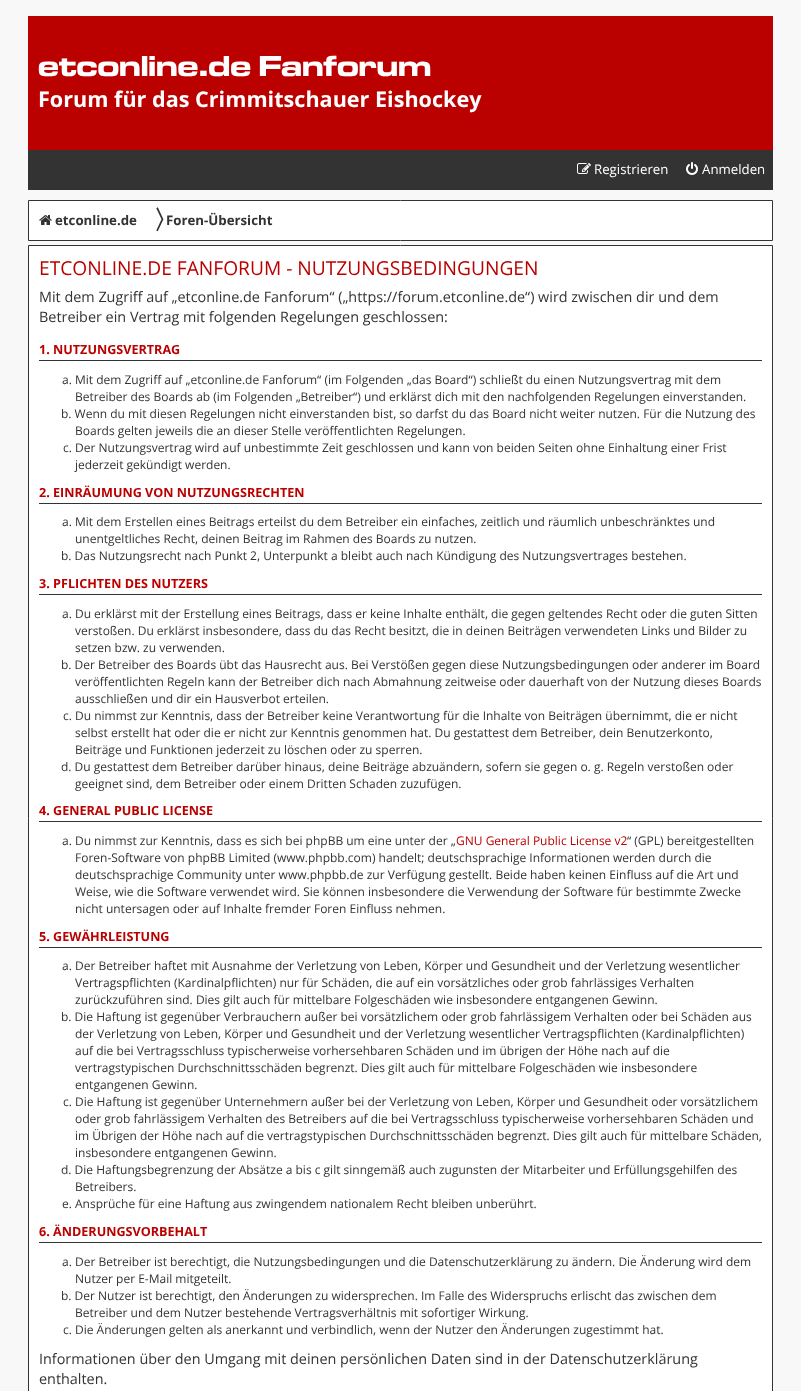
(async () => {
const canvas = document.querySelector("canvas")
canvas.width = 801
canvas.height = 1391
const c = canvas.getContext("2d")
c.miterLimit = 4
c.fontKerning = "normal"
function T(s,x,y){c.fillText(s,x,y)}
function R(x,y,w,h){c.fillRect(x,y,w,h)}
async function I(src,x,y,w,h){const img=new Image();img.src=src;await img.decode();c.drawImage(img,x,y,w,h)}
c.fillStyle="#f8f8f8"
R(0,0,801,1391)
c.fillStyle="#b00"
R(28,16,745,134)
c.font="bold 30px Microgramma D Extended"
c.fillStyle="#fff"
T("etconline.de Fanforum",38,76)
c.font="bold 21.6px Open Sans"
T("Forum für das Crimmitschauer Eishockey",38,107)
c.fillStyle="#333"
R(28,150,745,40)
await I("1.png",577,163,14,11)
c.font="13.25px Open Sans"
c.fillStyle="#fff"
T("Registrieren",594,174)
await I("2.png",686,162,12,13)
T("Anmelden",702,174)
c.beginPath()
c.rect(28.5,200.5,744,40)
c.fill()
c.strokeStyle="#333"
c.stroke()
await I("3.png",39,215,13,10)
c.font="bold 13.25px Open Sans"
c.fillStyle="#333"
T("etconline.de",55,225)
c.letterSpacing="-13px"
c.font="bold 26px WenQuanYi Zen Hei"
T("〉",153,229)
c.letterSpacing="0px"
c.font="bold 13.25px Open Sans"
T("Foren-Übersicht",166,225)
c.fillStyle="#fff"
c.beginPath()
c.rect(28.5,245.5,744,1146)
c.fill()
c.stroke()
c.font="19.2px Open Sans"
c.fillStyle="#b00"
T("ETCONLINE.DE FANFORUM - NUTZUNGSBEDINGUNGEN",39,275)
c.font="14.4px Open Sans"
c.fillStyle="#333"
T("Mit dem Zugriff auf „etconline.de Fanforum“ („https://forum.etconline.de“) wird zwischen dir und dem",39,302)
T("Betreiber ein Vertrag mit folgenden Regelungen geschlossen:",39,322)
R(39,360,723,1)
c.font="bold 12.6px Open Sans"
c.fillStyle="#b00"
T("1. NUTZUNGSVERTRAG",39,354)
c.font="12px Open Sans"
c.fillStyle="#333"
T("a. Mit dem Zugriff auf „etconline.de Fanforum“ (im Folgenden „das Board“) schließt du einen Nutzungsvertrag mit dem",62,384)
T("Betreiber des Boards ab (im Folgenden „Betreiber“) und erklärst dich mit den nachfolgenden Regelungen einverstanden.",75,401)
T("b. Wenn du mit diesen Regelungen nicht einverstanden bist, so darfst du das Board nicht weiter nutzen. Für die Nutzung des",61,418)
T("Boards gelten jeweils die an dieser Stelle veröffentlichten Regelungen.",75,435)
T("c. Der Nutzungsvertrag wird auf unbestimmte Zeit geschlossen und kann von beiden Seiten ohne Einhaltung einer Frist",63,452)
T("jederzeit gekündigt werden.",75,469)
R(39,503,723,1)
c.font="bold 12.6px Open Sans"
c.fillStyle="#b00"
T("2. EINRÄUMUNG VON NUTZUNGSRECHTEN",39,497)
c.font="12px Open Sans"
c.fillStyle="#333"
T("a. Mit dem Erstellen eines Beitrags erteilst du dem Betreiber ein einfaches, zeitlich und räumlich unbeschränktes und",62,526)
T("unentgeltliches Recht, deinen Beitrag im Rahmen des Boards zu nutzen.",75,543)
T("b. Das Nutzungsrecht nach Punkt 2, Unterpunkt a bleibt auch nach Kündigung des Nutzungsvertrages bestehen.",61,560)
R(39,594,723,1)
c.font="bold 12.6px Open Sans"
c.fillStyle="#b00"
T("3. PFLICHTEN DES NUTZERS",39,588)
c.font="12px Open Sans"
c.fillStyle="#333"
T("a. Du erklärst mit der Erstellung eines Beitrags, dass er keine Inhalte enthält, die gegen geltendes Recht oder die guten Sitten",62,618)
T("verstoßen. Du erklärst insbesondere, dass du das Recht besitzt, die in deinen Beiträgen verwendeten Links und Bilder zu",75,635)
T("setzen bzw. zu verwenden.",75,652)
T("b. Der Betreiber des Boards übt das Hausrecht aus. Bei Verstößen gegen diese Nutzungsbedingungen oder anderer im Board",61,669)
T("veröffentlichten Regeln kann der Betreiber dich nach Abmahnung zeitweise oder dauerhaft von der Nutzung dieses Boards",75,686)
T("ausschließen und dir ein Hausverbot erteilen.",75,703)
T("c. Du nimmst zur Kenntnis, dass der Betreiber keine Verantwortung für die Inhalte von Beiträgen übernimmt, die er nicht",63,720)
T("selbst erstellt hat oder die er nicht zur Kenntnis genommen hat. Du gestattest dem Betreiber, dein Benutzerkonto,",75,737)
T("Beiträge und Funktionen jederzeit zu löschen oder zu sperren.",75,754)
T("d. Du gestattest dem Betreiber darüber hinaus, deine Beiträge abzuändern, sofern sie gegen o. g. Regeln verstoßen oder",61,771)
T("geeignet sind, dem Betreiber oder einem Dritten Schaden zuzufügen.",75,788)
R(39,821,723,1)
c.font="bold 12.6px Open Sans"
c.fillStyle="#b00"
T("4. GENERAL PUBLIC LICENSE",39,815)
c.font="12px Open Sans"
c.fillStyle="#333"
T("a. Du nimmst zur Kenntnis, dass es sich bei phpBB um eine unter der „",62,845)
c.fillStyle="#b00"
T("GNU General Public License v2",456,845)
c.fillStyle="#333"
T("“ (GPL) bereitgestellten",627,845)
T("Foren-Software von phpBB Limited (www.phpbb.com) handelt; deutschsprachige Informationen werden durch die",75,862)
T("deutschsprachige Community unter www.phpbb.de zur Verfügung gestellt. Beide haben keinen Einfluss auf die Art und",75,879)
T("Weise, wie die Software verwendet wird. Sie können insbesondere die Verwendung der Software für bestimmte Zwecke",75,896)
T("nicht untersagen oder auf Inhalte fremder Foren Einfluss nehmen.",75,913)
R(39,947,723,1)
c.font="bold 12.6px Open Sans"
c.fillStyle="#b00"
T("5. GEWÄHRLEISTUNG",39,941)
c.font="12px Open Sans"
c.fillStyle="#333"
T("a. Der Betreiber haftet mit Ausnahme der Verletzung von Leben, Körper und Gesundheit und der Verletzung wesentlicher",62,970)
T("Vertragspflichten (Kardinalpflichten) nur für Schäden, die auf ein vorsätzliches oder grob fahrlässiges Verhalten",75,987)
T("zurückzuführen sind. Dies gilt auch für mittelbare Folgeschäden wie insbesondere entgangenen Gewinn.",75,1004)
T("b. Die Haftung ist gegenüber Verbrauchern außer bei vorsätzlichem oder grob fahrlässigem Verhalten oder bei Schäden aus",61,1021)
T("der Verletzung von Leben, Körper und Gesundheit und der Verletzung wesentlicher Vertragspflichten (Kardinalpflichten)",75,1038)
T("auf die bei Vertragsschluss typischerweise vorhersehbaren Schäden und im übrigen der Höhe nach auf die",75,1055)
T("vertragstypischen Durchschnittsschäden begrenzt. Dies gilt auch für mittelbare Folgeschäden wie insbesondere",75,1072)
T("entgangenen Gewinn.",75,1089)
T("c. Die Haftung ist gegenüber Unternehmern außer bei der Verletzung von Leben, Körper und Gesundheit oder vorsätzlichem",63,1106)
T("oder grob fahrlässigem Verhalten des Betreibers auf die bei Vertragsschluss typischerweise vorhersehbaren Schäden und",75,1123)
T("im Übrigen der Höhe nach auf die vertragstypischen Durchschnittsschäden begrenzt. Dies gilt auch für mittelbare Schäden,",75,1140)
T("insbesondere entgangenen Gewinn.",75,1157)
T("d. Die Haftungsbegrenzung der Absätze a bis c gilt sinngemäß auch zugunsten der Mitarbeiter und Erfüllungsgehilfen des",61,1174)
T("Betreibers.",75,1191)
T("e. Ansprüche für eine Haftung aus zwingendem nationalem Recht bleiben unberührt.",62,1208)
R(39,1242,723,1)
c.font="bold 12.6px Open Sans"
c.fillStyle="#b00"
T("6. ÄNDERUNGSVORBEHALT",39,1236)
c.font="12px Open Sans"
c.fillStyle="#333"
T("a. Der Betreiber ist berechtigt, die Nutzungsbedingungen und die Datenschutzerklärung zu ändern. Die Änderung wird dem",62,1266)
T("Nutzer per E-Mail mitgeteilt.",75,1283)
T("b. Der Nutzer ist berechtigt, den Änderungen zu widersprechen. Im Falle des Widerspruchs erlischt das zwischen dem",61,1300)
T("Betreiber und dem Nutzer bestehende Vertragsverhältnis mit sofortiger Wirkung.",75,1317)
T("c. Die Änderungen gelten als anerkannt und verbindlich, wenn der Nutzer den Änderungen zugestimmt hat.",63,1334)
c.font="14.4px Open Sans"
T("Informationen über den Umgang mit deinen persönlichen Daten sind in der Datenschutzerklärung",39,1364)
T("enthalten.",39,1384)
})()
